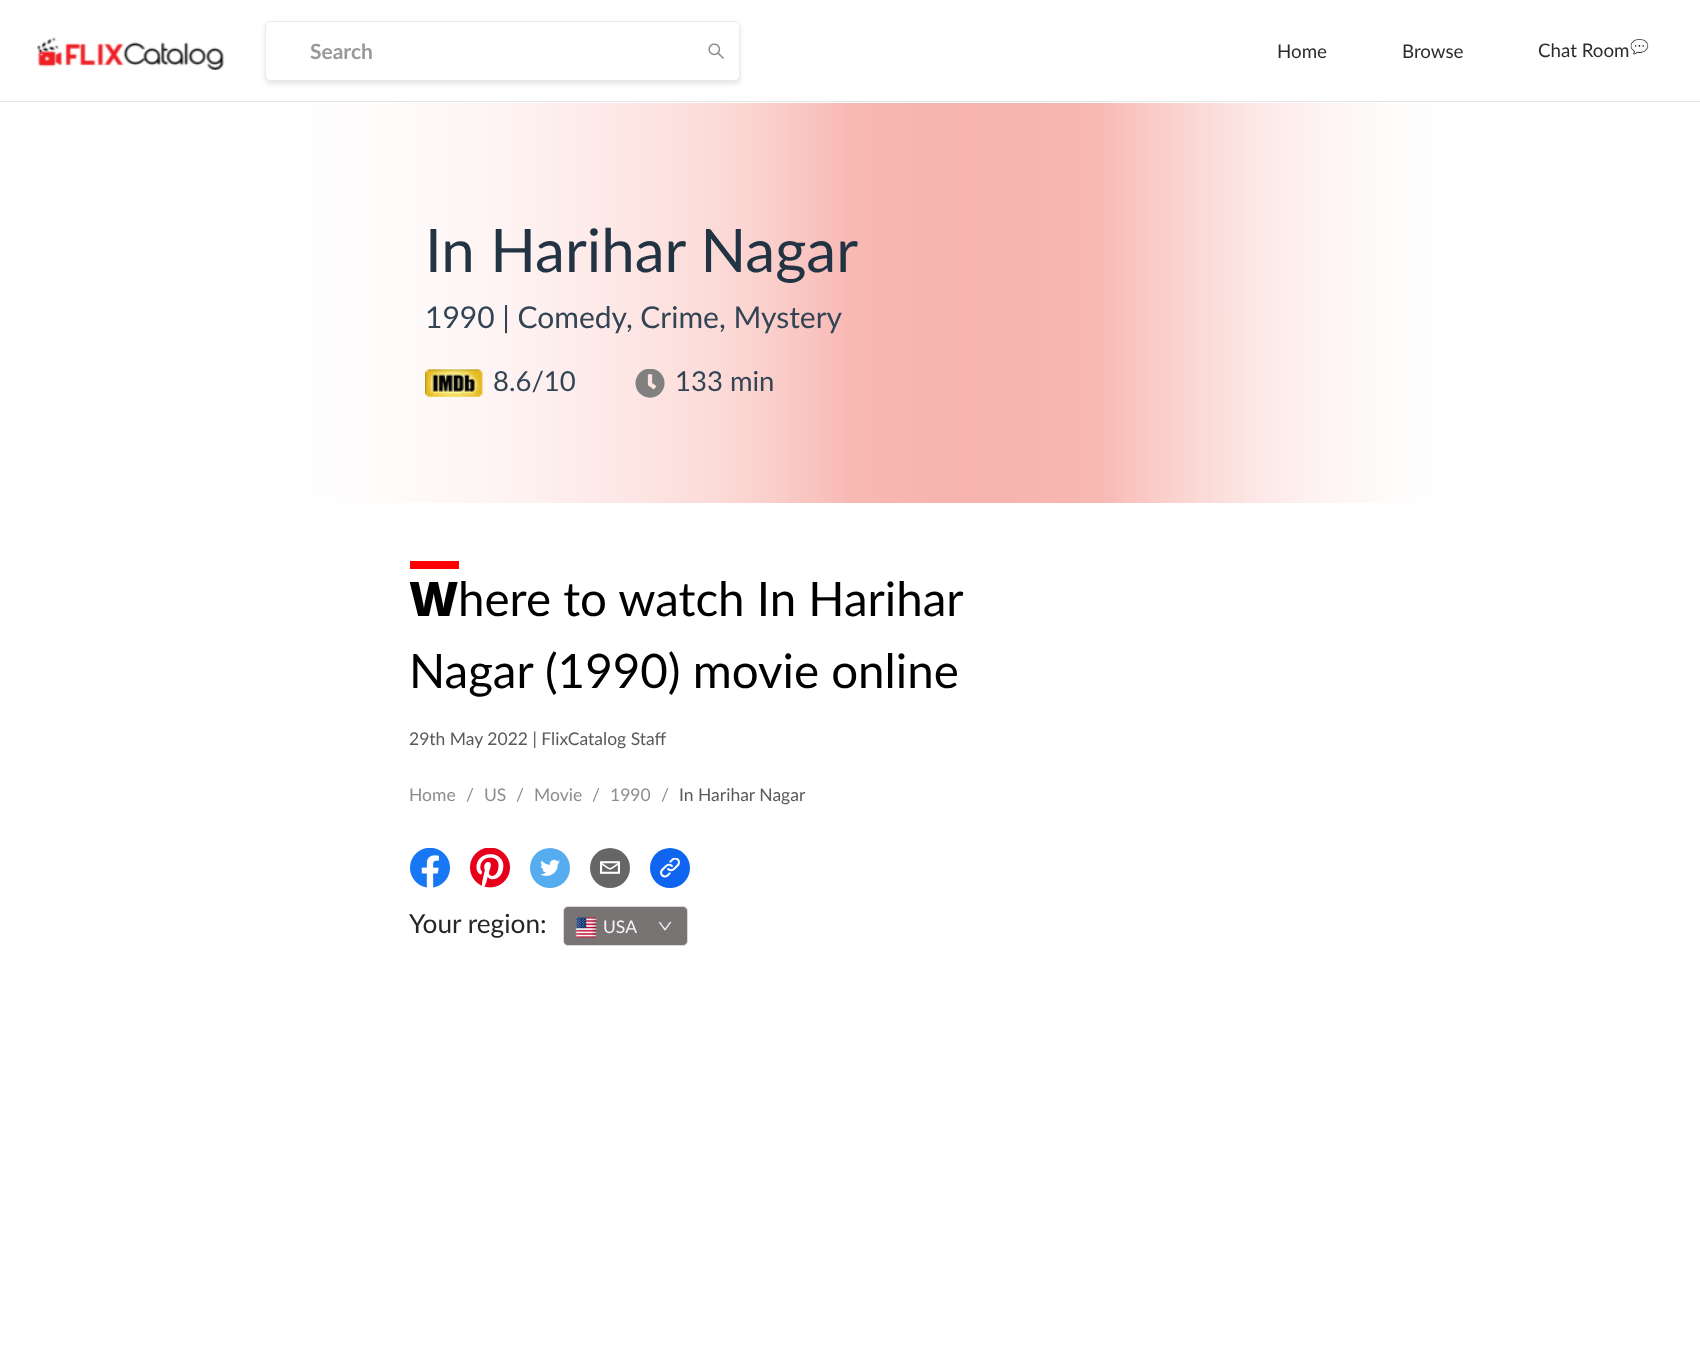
(async () => {
const canvas = document.querySelector("canvas")
canvas.width = 1700
canvas.height = 1346
const c = canvas.getContext("2d")
c.miterLimit = 4
c.fontKerning = "normal"
function T(s,x,y){c.fillText(s,x,y)}
function R(x,y,w,h){c.fillRect(x,y,w,h)}
async function I(src,x,y,w,h){const img=new Image();img.src=src;await img.decode();c.drawImage(img,x,y,w,h)}
let gradient
c.fillStyle="#fff"
R(0,0,1700,1346)
c.fillStyle="#e6e6e6"
R(0,101,1700,1)
await I("1.png",37,37,188,33)
c.fillStyle="#0000001a"
c.filter="blur(2.5px)"
c.beginPath()
c.roundRect(265,24,475,60,5)
c.fill()
c.filter="none"
c.fillStyle="#fff"
c.beginPath()
c.roundRect(265.5,21.5,474,59,4.5)
c.fill()
c.strokeStyle="#ebebeb"
c.stroke()
c.font="bold 21px Lato"
c.fillStyle="#999"
T("Search",310,59)
await I("2.png",708,43,16,16)
c.font="18.75px Lato"
c.fillStyle="#2c2c2c"
T("Home",1277,58)
T("Browse",1402,58)
T("Chat Room",1538,57)
await I("3.png",1630,39,19,16)
gradient = c.createLinearGradient(225,303,1475,302)
gradient.addColorStop(0,"#fff")
gradient.addColorStop(.5,"#f48a81")
gradient.addColorStop(1,"#fff")
c.fillStyle = gradient
R(237,103,1226,400)
gradient = c.createLinearGradient(225,306,1475,306)
gradient.addColorStop(0,"#fff")
gradient.addColorStop(.4,"#ffffff99")
gradient.addColorStop(.7,"#ffffff00")
gradient.addColorStop(1,"#fff")
c.fillStyle = gradient
R(237,103,1226,400)
c.font="60px Lato"
c.fillStyle="#234"
T("In Harihar Nagar",425,272)
c.font="30px Lato"
c.fillStyle="#345"
T("1990 | Comedy, Crime, Mystery",425,328)
await I("4.png",425,369,58,28)
c.font="27.5px Lato"
T("8.6/10",493,391)
await I("5.png",635,369,30,29)
T("133 min",675,391)
c.font="900 47.5px Noto Sans"
c.fillStyle="#000"
T("W",409,616)
c.fillStyle="#f00"
R(410,561,49,8)
c.font="47.5px Lato"
c.fillStyle="#000"
T("here to watch In Harihar",458,616)
T("Nagar (1990) movie online",409,688)
c.font="17.5px Lato"
c.fillStyle="#595959"
T("29th May 2022 | FlixCatalog Staff",409,745)
c.fillStyle="#8c8c8c"
T("Home",409,801)
T("/",466,801)
T("US",484,801)
T("/",516,801)
T("Movie",534,801)
T("/",592,801)
T("1990",610,801)
T("/",661,801)
c.fillStyle="#595959"
T("In Harihar Nagar",679,801)
await I("6.png",410,848,40,40)
await I("7.png",470,848,40,40)
c.fillStyle="#55acee"
c.beginPath()
c.arc(550,868,20,0,7)
c.fill()
await I("8.png",540,859,20,17)
c.fillStyle="#666"
c.beginPath()
c.arc(610,868,20,0,7)
c.fill()
await I("9.png",600,861,20,13)
c.fillStyle="#0f65ef"
c.beginPath()
c.arc(670,868,20,0,7)
c.fill()
await I("10.png",660,858,20,20)
c.font="26.25px Lato"
c.fillStyle="#262626"
T("Your region:",409,933)
c.fillStyle="#797474"
c.beginPath()
c.roundRect(563.5,906.5,124,39,4.5)
c.fill()
c.strokeStyle="#d9d9d9"
c.stroke()
await I("11.png",575,917,22,21)
c.font="17.5px Lato"
c.fillStyle="#f5f5f5"
T("USA",603,933)
await I("12.png",658,921,14,10)
})()
